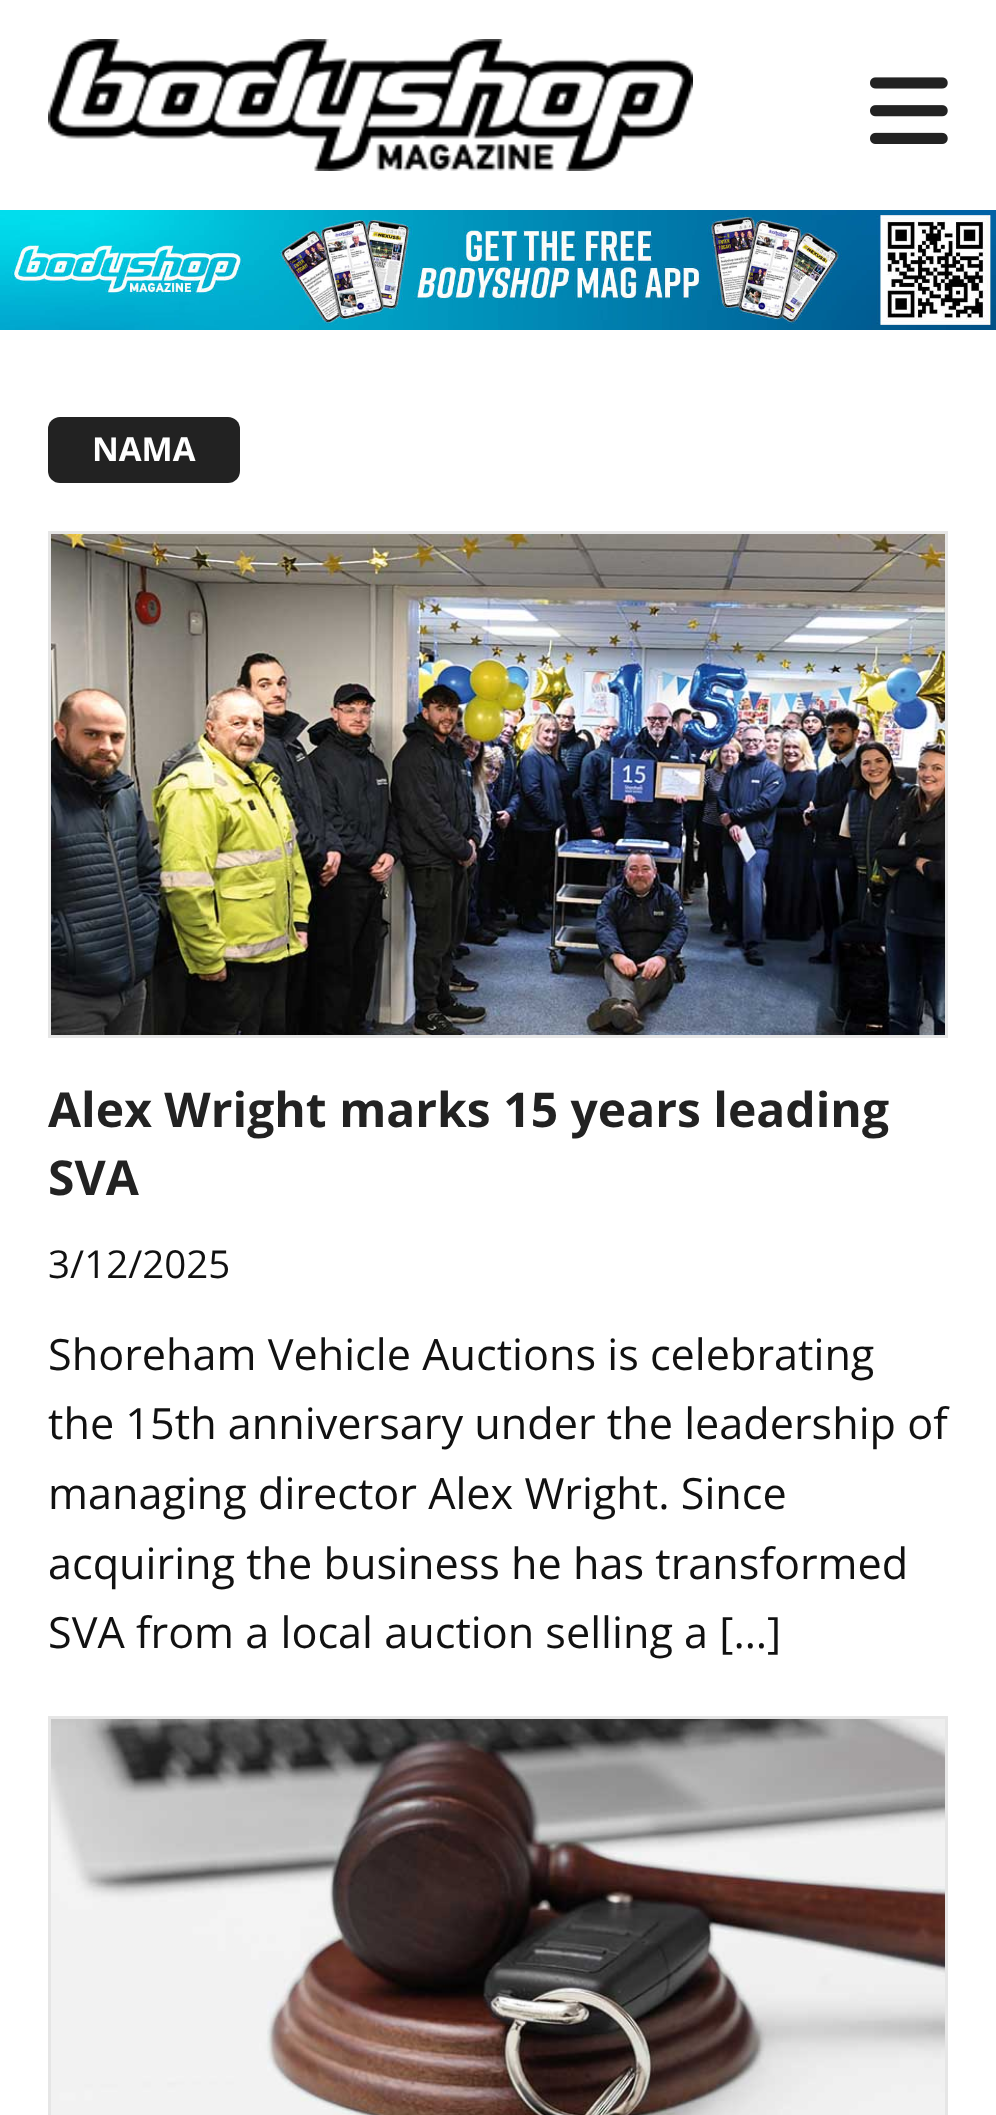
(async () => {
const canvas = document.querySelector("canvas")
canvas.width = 996
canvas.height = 2115
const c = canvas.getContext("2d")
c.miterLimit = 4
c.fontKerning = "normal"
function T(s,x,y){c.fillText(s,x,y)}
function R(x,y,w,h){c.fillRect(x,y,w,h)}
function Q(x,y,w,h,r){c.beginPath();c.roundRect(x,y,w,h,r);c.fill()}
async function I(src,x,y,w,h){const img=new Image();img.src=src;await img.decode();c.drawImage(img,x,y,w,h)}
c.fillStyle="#fff"
R(0,0,996,2115)
await I("1.png",48,39,645,132)
await I("2.png",0,210,996,120)
await I("3.png",870,77,78,67)
c.fillStyle="#222"
Q(48,417,192,66,12)
c.font="bold 33px Open Sans"
c.fillStyle="#fff"
T("NAMA",92,461)
c.strokeStyle="#e6e6e6"
c.lineWidth=3
c.strokeRect(49.5,532.5,897,504)
await I("4.png",51,534,894,501)
c.font="bold 48px Open Sans"
c.fillStyle="#222"
T("Alex Wright marks 15 years leading",48,1127)
T("SVA",48,1195)
c.font="38.5px Open Sans"
c.fillStyle="#111"
T("3/12/2025",48,1278)
c.font="43.2px Open Sans"
T("Shoreham Vehicle Auctions is celebrating",48,1370)
T("the 15th anniversary under the leadership of",48,1439)
T("managing director Alex Wright. Since",48,1509)
T("acquiring the business he has transformed",48,1579)
T("SVA from a local auction selling a […]",48,1648)
c.strokeRect(49.5,1717.5,897,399)
await I("5.png",51,1719,894,396)
})()
